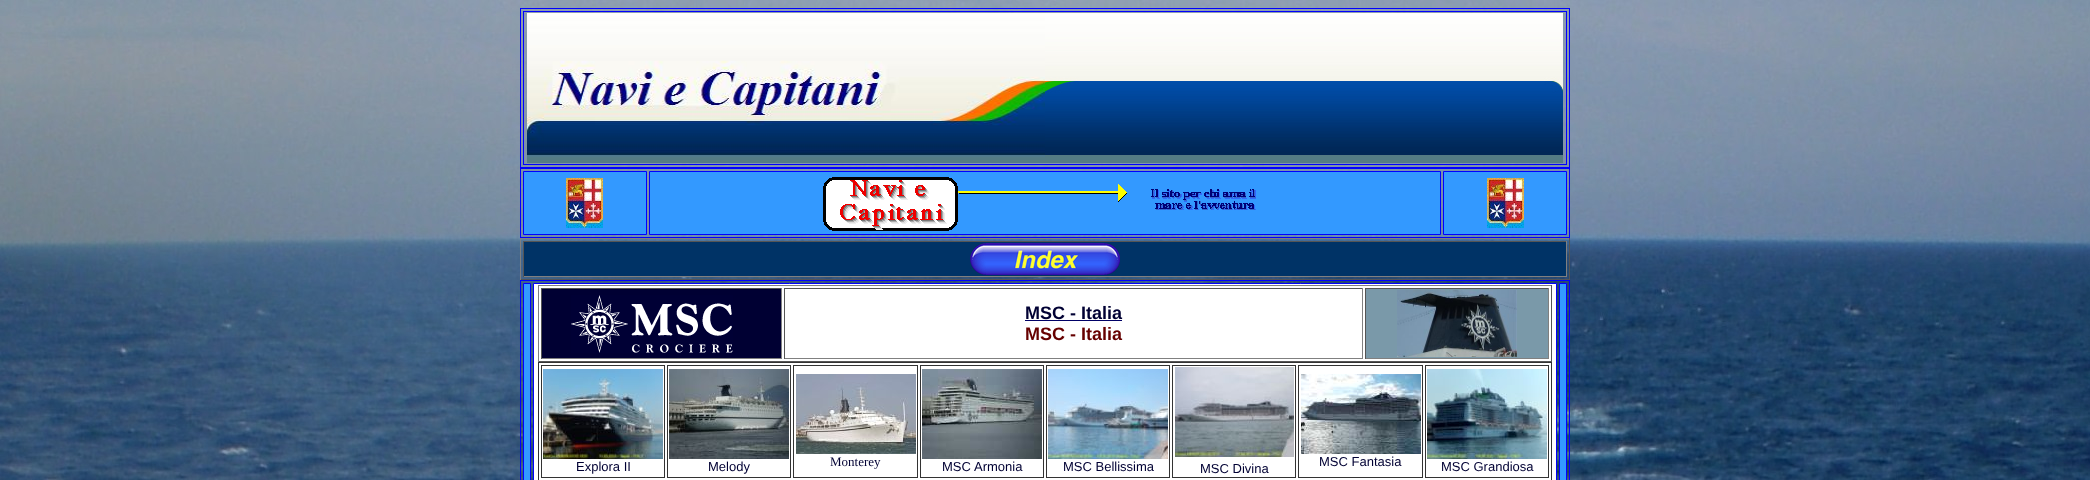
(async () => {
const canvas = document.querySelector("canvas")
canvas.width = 2090
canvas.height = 480
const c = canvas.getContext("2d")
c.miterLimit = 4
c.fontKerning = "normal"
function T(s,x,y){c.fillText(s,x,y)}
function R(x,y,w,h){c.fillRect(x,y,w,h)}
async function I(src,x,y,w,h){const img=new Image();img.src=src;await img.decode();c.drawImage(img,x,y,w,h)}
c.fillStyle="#fff"
R(0,0,2090,480)
await I("1.png",0,0,2090,480)
c.strokeStyle="#00f"
c.strokeRect(520.5,8.5,1049,159)
c.strokeRect(523.5,11.5,1043,153)
await I("2.png",527,13,518,150)
await I("3.png",1045,13,518,150)
c.strokeRect(520.5,168.5,1049,69)
c.fillStyle="#39f"
c.beginPath()
c.rect(523.5,171.5,123,63)
c.fill()
c.stroke()
await I("4.png",566,178,37,50)
c.beginPath()
c.rect(649.5,171.5,791,63)
c.fill()
c.stroke()
await I("5.png",823,177,433,54)
c.beginPath()
c.rect(1443.5,171.5,123,63)
c.fill()
c.stroke()
await I("4.png",1487,178,37,50)
c.fillStyle="#808080"
R(520,238,1050,1)
c.fillStyle="#555"
R(1569,238,1,42)
R(520,279,1050,1)
c.fillStyle="#808080"
R(520,238,1,42)
c.fillStyle="#036"
R(524,242,1042,34)
c.fillStyle="#555"
R(523,241,1044,1)
c.fillStyle="#808080"
R(1566,241,1,36)
R(523,276,1044,1)
c.fillStyle="#555"
R(523,241,1,36)
await I("6.png",970,243,150,32)
c.strokeRect(520.5,280.5,1049,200)
c.fillStyle="#39f"
c.beginPath()
c.rect(523.5,283.5,7,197)
c.fill()
c.stroke()
c.fillStyle="#fff"
c.beginPath()
c.rect(533.5,283.5,1023,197)
c.fill()
c.stroke()
c.fillStyle="#808080"
R(538,285,1014,1)
c.fillStyle="#555"
R(1551,285,1,77)
R(538,361,1014,1)
c.fillStyle="#808080"
R(538,285,1,77)
c.fillStyle="#003"
R(542,289,239,69)
c.fillStyle="#555"
R(541,288,241,1)
c.fillStyle="#808080"
R(781,288,1,71)
R(541,358,241,1)
c.fillStyle="#555"
R(541,288,1,71)
await I("7.png",571,295,162,58)
R(784,288,579,1)
c.fillStyle="#808080"
R(1362,288,1,71)
R(784,358,579,1)
c.fillStyle="#555"
R(784,288,1,71)
c.font="bold 18px Liberation Sans"
c.fillStyle="#003"
T("MSC - Italia",1025,319)
c.fillStyle="#006"
R(1025,320,97,1)
c.fillStyle="#600"
T("MSC - Italia",1025,340)
c.fillStyle="#7a99a9"
R(1366,289,182,69)
c.fillStyle="#555"
R(1365,288,184,1)
c.fillStyle="#808080"
R(1548,288,1,71)
R(1365,358,184,1)
c.fillStyle="#555"
R(1365,288,1,71)
await I("8.png",1397,290,120,67)
c.strokeStyle="#333"
c.strokeRect(538.5,362.5,1013,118)
c.strokeRect(541.5,365.5,123,112)
await I("9.png",543,369,120,90)
c.font="13px Liberation Sans"
c.fillStyle="#003"
T("Explora II",576,471)
c.strokeRect(667.5,365.5,123,112)
await I("10.png",669,369,120,90)
T("Melody",708,471)
c.strokeRect(793.5,365.5,124,112)
await I("11.png",796,374,120,80)
c.font="13px Liberation Serif"
T("Monterey",830,466)
c.strokeRect(920.5,365.5,123,112)
await I("12.png",922,369,120,90)
c.font="13px Liberation Sans"
T("MSC",942,471)
T("Armonia",974,471)
c.strokeRect(1046.5,365.5,123,112)
await I("13.png",1048,369,120,90)
T("MSC Bellissima",1063,471)
c.strokeRect(1172.5,365.5,123,112)
await I("14.png",1175,367,119,90)
T("MSC Divina",1200,473)
c.strokeRect(1298.5,365.5,124,112)
await I("15.png",1301,374,120,80)
T("MSC Fantasia",1319,466)
c.strokeRect(1425.5,365.5,123,112)
await I("16.png",1427,369,120,90)
T("MSC Grandiosa",1441,471)
c.fillStyle="#39f"
c.beginPath()
c.rect(1559.5,283.5,7,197)
c.fill()
c.strokeStyle="#00f"
c.stroke()
})()
